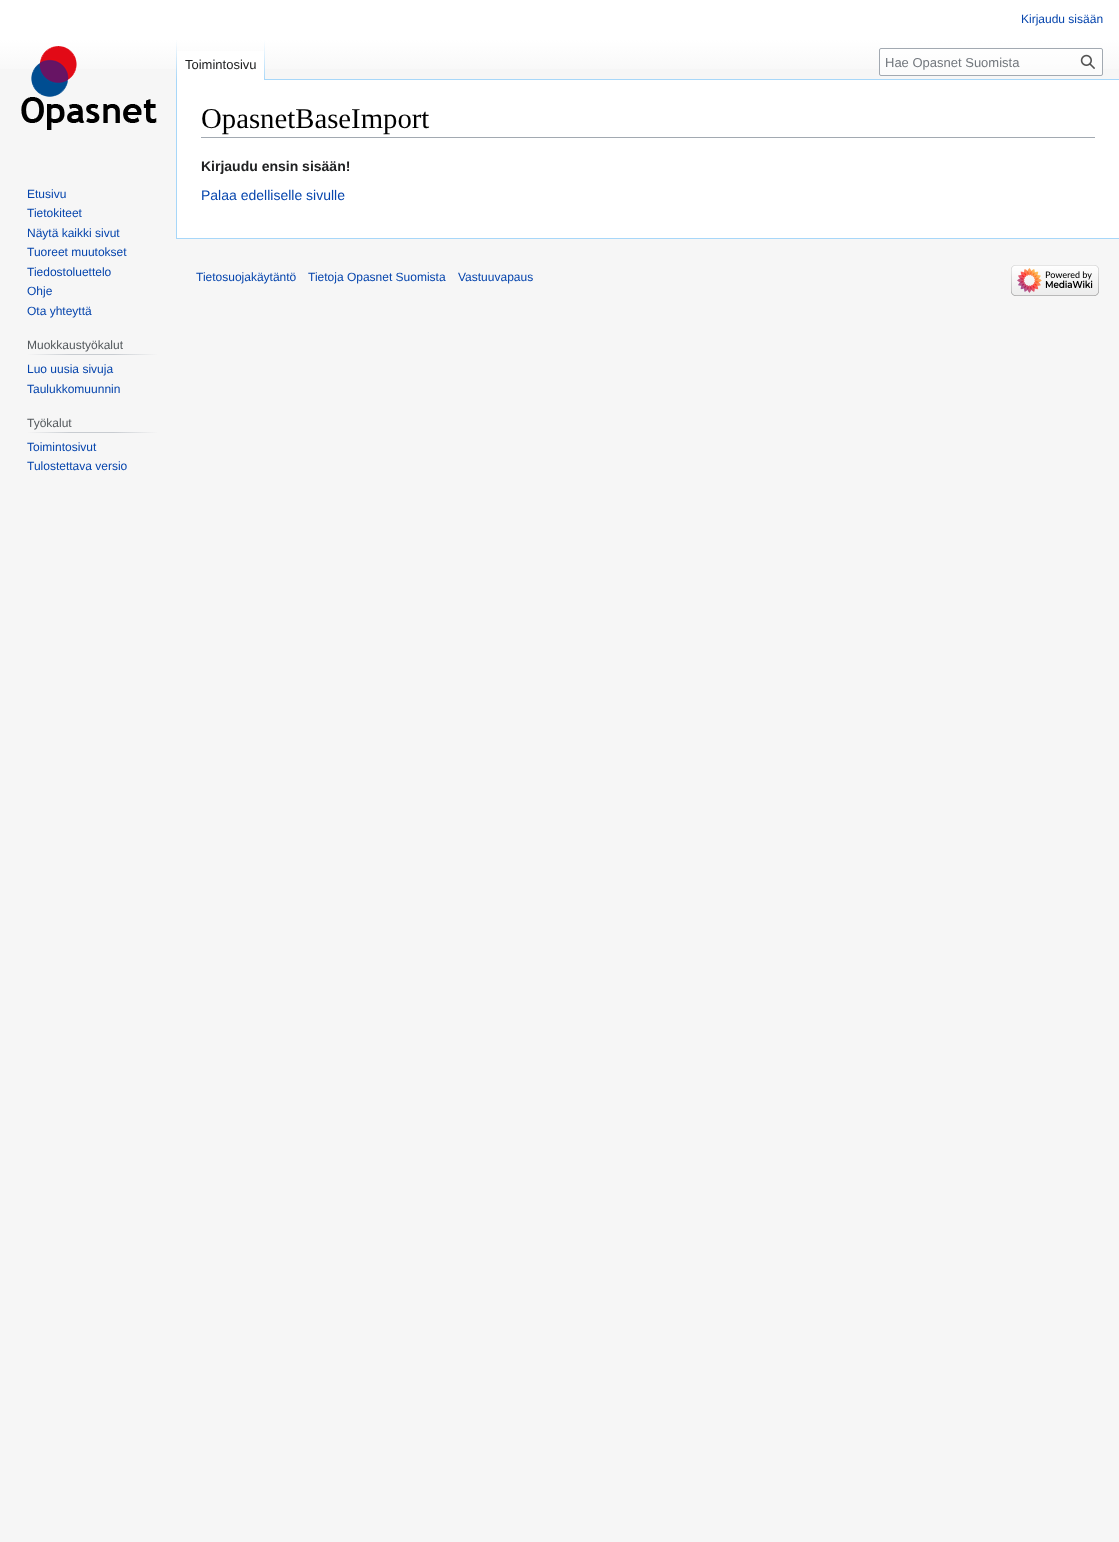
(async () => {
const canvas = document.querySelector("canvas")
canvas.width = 1119
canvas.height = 1542
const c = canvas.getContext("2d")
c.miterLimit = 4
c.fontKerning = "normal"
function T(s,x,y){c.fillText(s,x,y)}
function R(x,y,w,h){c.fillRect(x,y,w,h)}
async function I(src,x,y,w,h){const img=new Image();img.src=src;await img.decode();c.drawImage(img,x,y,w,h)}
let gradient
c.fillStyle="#f6f6f6"
R(0,0,1119,1542)
gradient = c.createLinearGradient(560,0,560,80)
gradient.addColorStop(.5,"#fff")
gradient.addColorStop(1,"#f6f6f6")
c.fillStyle = gradient
R(0,0,1119,69)
c.font="12px Liberation Sans"
c.fillStyle="#0645ad"
T("Kirjaudu sisään",1021,23)
c.fillStyle="#a7d7f9"
R(176,238,943,1)
R(176,79,1,160)
gradient = c.createLinearGradient(177,40,177,80)
gradient.addColorStop(0,"#a7d7f900")
gradient.addColorStop(1,"#a7d7f9")
c.fillStyle = gradient
R(176,40,1,40)
c.fillStyle="#fff"
R(177,51,87,29)
gradient = c.createLinearGradient(265,40,265,80)
gradient.addColorStop(0,"#fff")
gradient.addColorStop(1,"#a7d7f9")
c.fillStyle = gradient
R(264,40,1,40)
c.font="13px Liberation Sans"
c.fillStyle="#202122"
T("Toimintosivu",185,69)
c.fillStyle="#ffffff80"
c.beginPath()
c.roundRect(879.5,48.5,223,27,1.5)
c.fill()
c.strokeStyle="#a2a9b1"
c.stroke()
c.fillStyle="#72777d"
T("Hae Opasnet Suomista",885,67)
await I("1.png",1080,54,15,15)
await I("2.png",21,46,136,84)
c.font="12px Liberation Sans"
c.fillStyle="#0645ad"
T("Etusivu",27,198)
T("Tietokiteet",27,217)
T("Näytä kaikki sivut",27,237)
T("Tuoreet muutokset",27,256)
T("Tiedostoluettelo",27,276)
T("Ohje",27,295)
T("Ota yhteyttä",27,315)
gradient = c.createLinearGradient(27,355,158,355)
gradient.addColorStop(0,"#f6f6f6")
gradient.addColorStop(.33,"#c8ccd1")
gradient.addColorStop(.66,"#c8ccd1")
gradient.addColorStop(1,"#f6f6f6")
c.fillStyle = gradient
R(27,354,131,1)
c.fillStyle="#54595d"
T("Muokkaustyökalut",27,349)
c.fillStyle="#0645ad"
T("Luo uusia sivuja",27,373)
T("Taulukkomuunnin",27,393)
gradient = c.createLinearGradient(27,433,158,433)
gradient.addColorStop(0,"#f6f6f6")
gradient.addColorStop(.33,"#c8ccd1")
gradient.addColorStop(.66,"#c8ccd1")
gradient.addColorStop(1,"#f6f6f6")
c.fillStyle = gradient
R(27,432,131,1)
c.fillStyle="#54595d"
T("Työkalut",27,427)
c.fillStyle="#0645ad"
T("Toimintosivut",27,451)
T("Tulostettava versio",27,470)
c.fillStyle="#fff"
R(177,80,942,158)
c.fillStyle="#a7d7f9"
R(265,79,854,1)
c.fillStyle="#a2a9b1"
R(201,137,894,1)
c.font="28.75px Liberation Serif"
c.fillStyle="#000"
T("OpasnetBaseImport",201,128)
c.font="bold 14px Liberation Sans"
c.fillStyle="#202122"
T("Kirjaudu ensin sisään!",201,171)
c.font="14px Liberation Sans"
c.fillStyle="#0645ad"
T("Palaa edelliselle sivulle",201,200)
c.font="12px Liberation Sans"
T("Tietosuojakäytäntö",196,281)
T("Tietoja Opasnet Suomista",308,281)
T("Vastuuvapaus",458,281)
await I("3.png",1011,265,88,31)
})()
